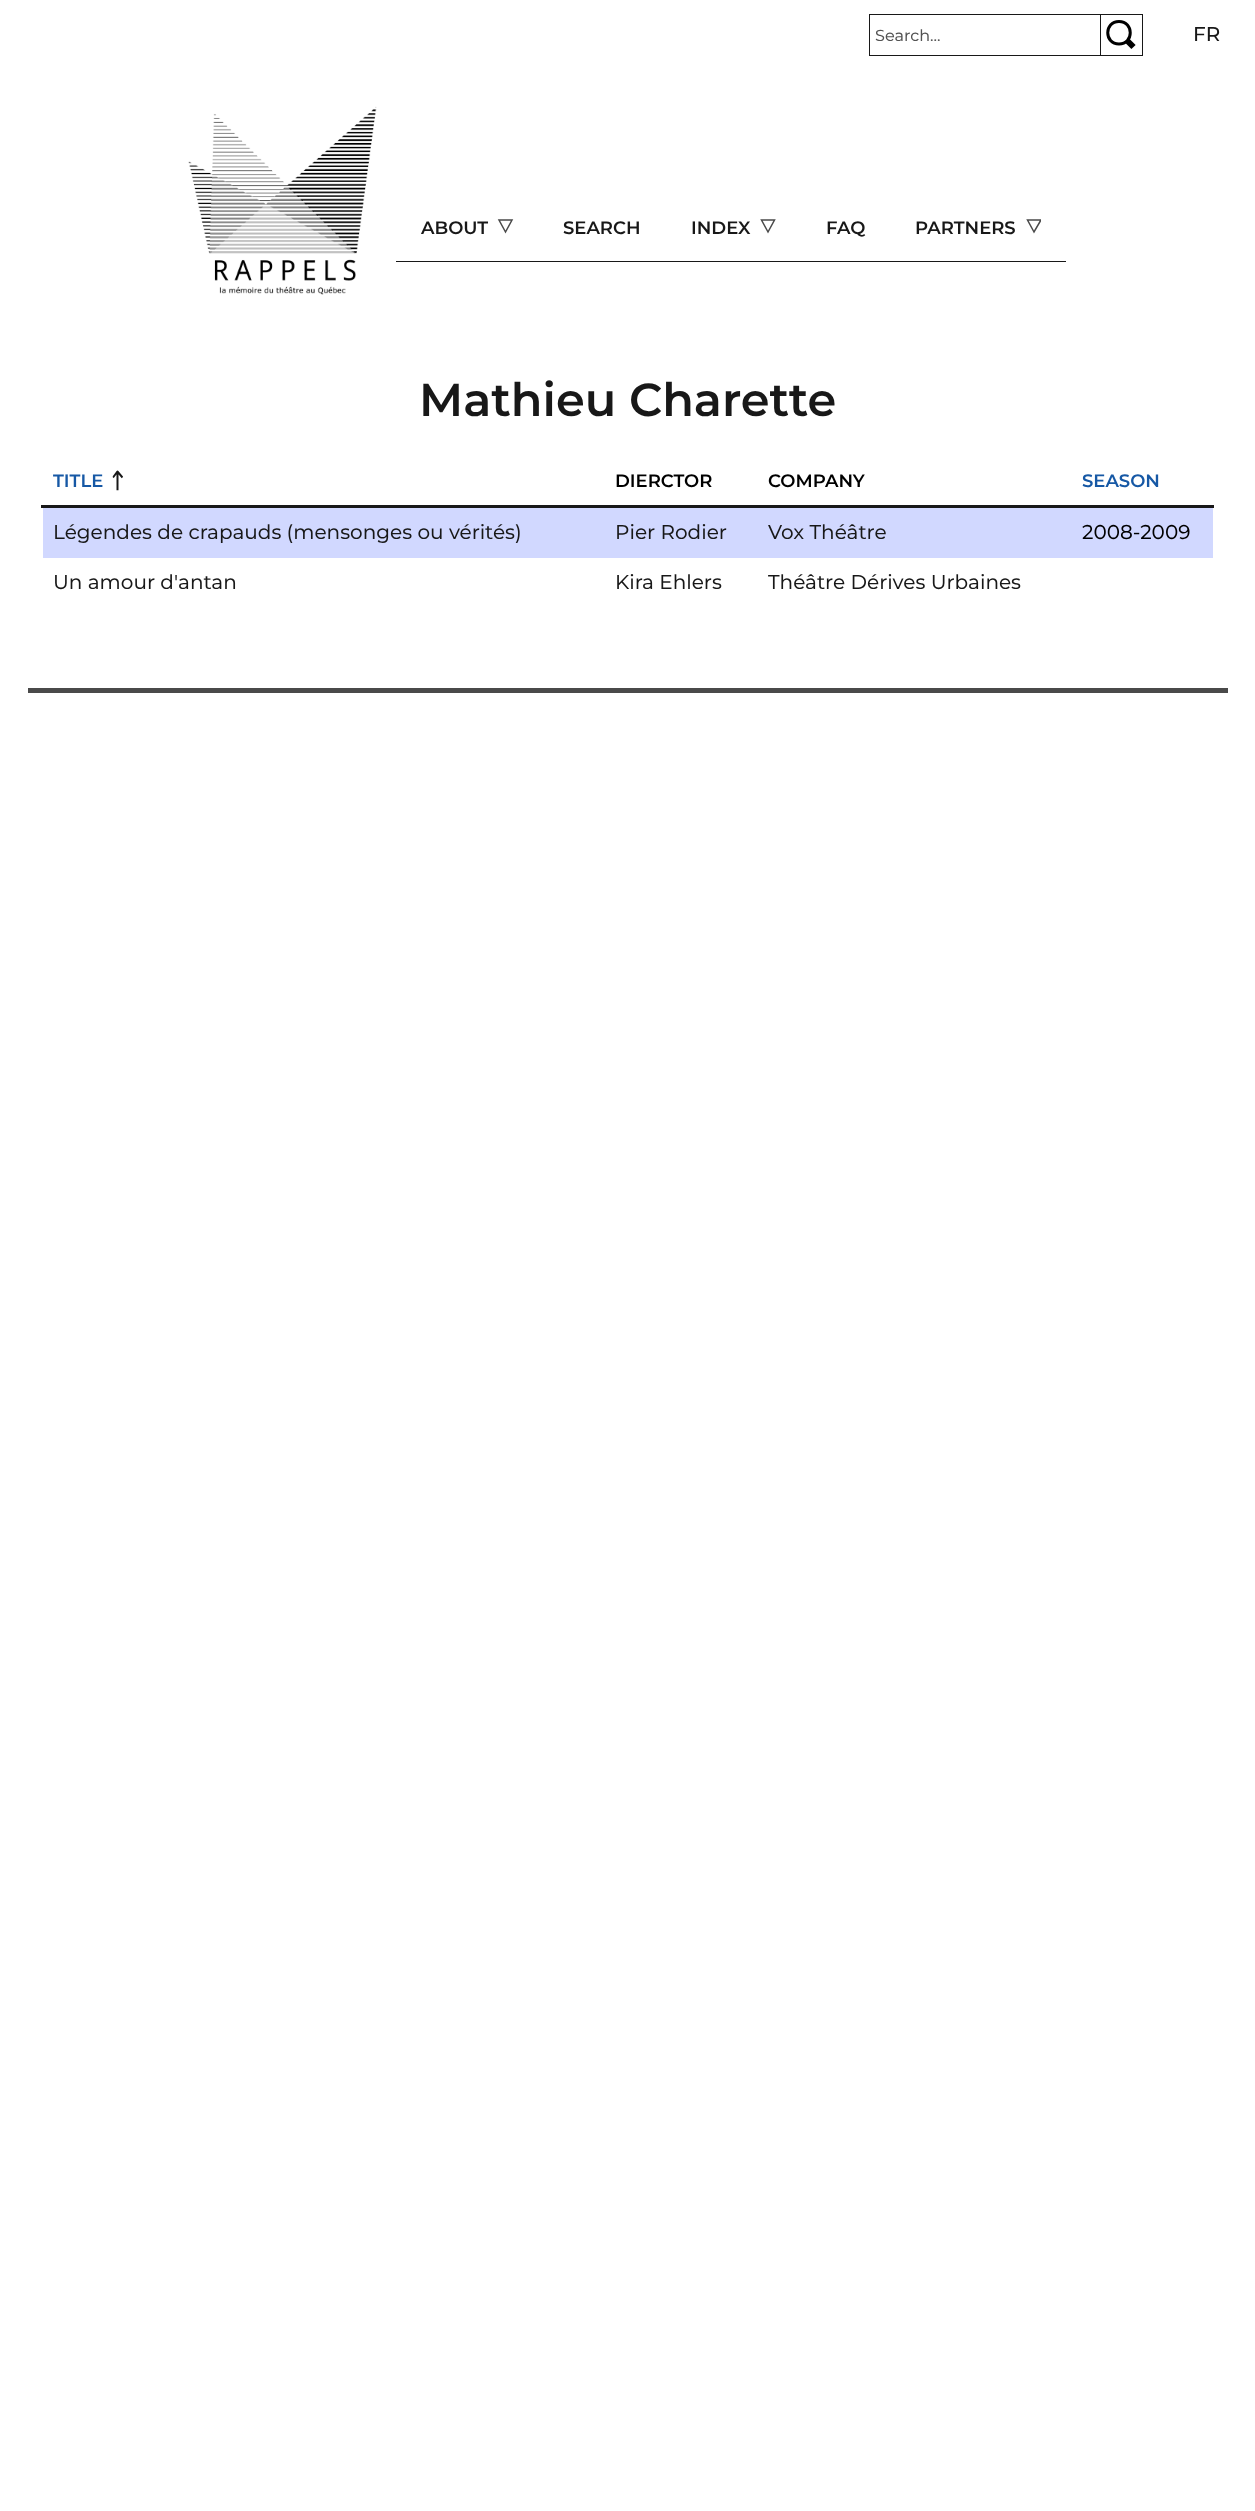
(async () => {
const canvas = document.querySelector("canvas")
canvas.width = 1255
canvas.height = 2511
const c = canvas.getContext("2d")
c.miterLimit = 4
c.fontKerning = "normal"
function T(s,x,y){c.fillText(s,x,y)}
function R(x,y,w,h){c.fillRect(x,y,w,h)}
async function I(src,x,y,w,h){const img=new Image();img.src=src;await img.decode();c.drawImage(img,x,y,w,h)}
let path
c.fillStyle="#fff"
R(0,0,1255,2511)
c.strokeStyle="#181818"
c.strokeRect(869.5,14.5,231,41)
c.font="16px Montserrat"
c.fillStyle="#525252"
T("Search...",875,41)
c.strokeRect(1100.5,14.5,42,41)
path = new Path2D("M1119 21.5c-15 0-15 22.5 0 22.5c15 0 15-22.5 0-22.5z")
c.strokeStyle="#000"
c.lineWidth=3
c.stroke(path)
path = new Path2D("M1127 40.5l6.5 6.5")
c.lineWidth=6
c.stroke(path)
c.font="500 20px Montserrat"
c.fillStyle="#181818"
T("FR",1193,41)
await I("1.png",188,106,189,189)
R(396,261,670,1)
c.font="600 18px Montserrat"
T("ABOUT",421,234)
path = new Path2D("M505.5 232l-6.5-12h13z")
c.strokeStyle="#4a4a4a"
c.lineWidth=1.5
c.stroke(path)
T("SEARCH",563,234)
T("INDEX",691,234)
path = new Path2D("M768 232l-6.5-12h13z")
c.stroke(path)
T("FAQ",826,234)
T("PARTNERS",915,234)
c.save()
c.beginPath()
c.rect(1026,219,15,15)
c.clip()
path = new Path2D("M1034 232l-6.5-12h13.5z")
c.stroke(path)
c.restore()
c.font="600 46.25px Montserrat"
T("Mathieu Charette",419,416)
c.font="600 18px Montserrat"
c.fillStyle="#1658a5"
T("TITLE",53,487)
c.save()
path = new Path2D("M112.5 490.5v-20h10.5v20z")
c.clip(path)
path = new Path2D("M117.5 490.5v-18.5m5 5.5l-5-6l-4.5 6")
c.strokeStyle="#181818"
c.lineWidth=2
c.stroke(path)
c.restore()
c.fillStyle="#000"
T("DIERCTOR",615,487)
T("COMPANY",768,487)
c.fillStyle="#181818"
R(41,505,1173,3)
c.fillStyle="#1658a5"
T("SEASON",1082,487)
c.fillStyle="#d1d8ff"
R(43,508,1170,50)
c.font="20px Montserrat"
c.fillStyle="#181818"
T("Légendes de crapauds (mensonges ou vérités)",53,539)
T("Pier Rodier",615,539)
T("Vox Théâtre",768,539)
c.fillStyle="#000"
T("2008-2009",1082,539)
c.fillStyle="#181818"
T("Un amour d'antan",53,589)
T("Kira Ehlers",615,589)
T("Théâtre Dérives Urbaines",768,589)
c.fillStyle="#4a4a4a"
R(28,688,1200,5)
})()
